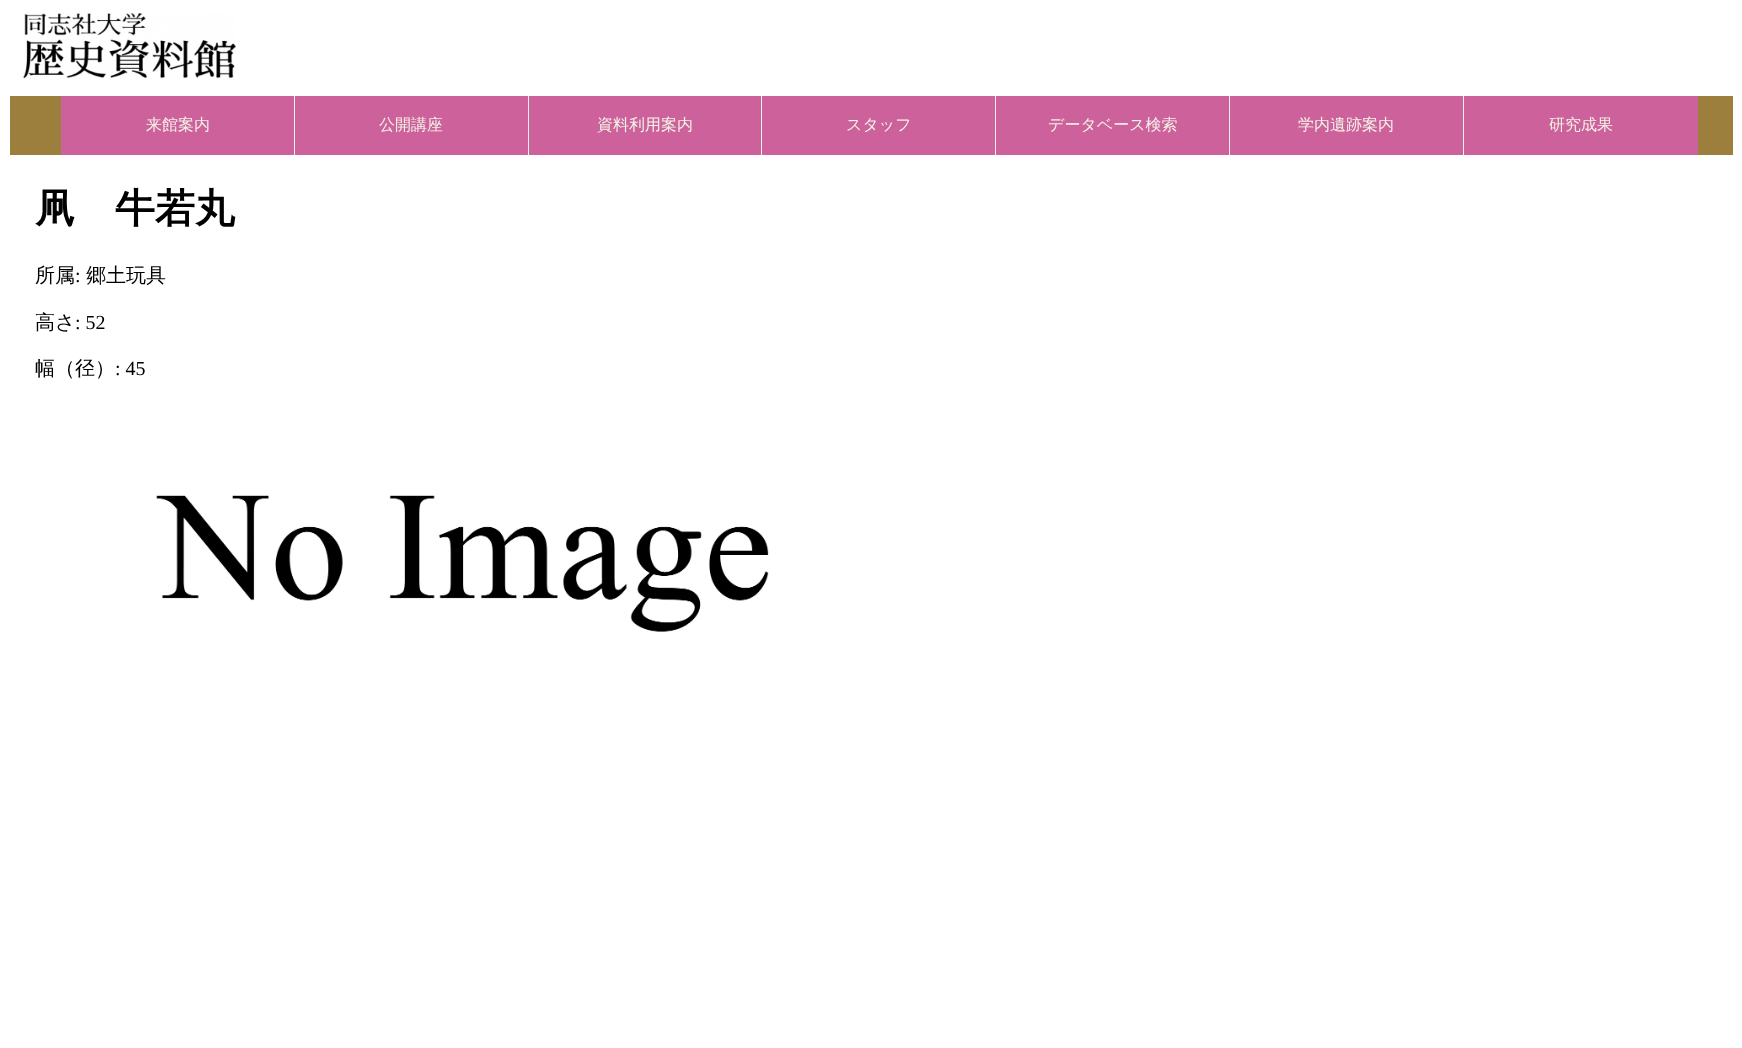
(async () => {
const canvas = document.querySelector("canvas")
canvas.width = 1742
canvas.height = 1048
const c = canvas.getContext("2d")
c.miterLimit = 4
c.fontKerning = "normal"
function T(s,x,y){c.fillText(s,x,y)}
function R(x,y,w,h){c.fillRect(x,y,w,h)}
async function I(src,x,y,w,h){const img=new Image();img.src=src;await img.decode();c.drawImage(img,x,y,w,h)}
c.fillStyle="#fff"
R(0,0,1742,1048)
await I("1.png",23,13,213,66)
c.fillStyle="#9c7f3d"
R(10,96,1723,59)
c.fillStyle="#cd619b"
R(61,96,233,59)
c.fillStyle="#f2f2e5"
R(294,96,1,59)
c.font="500 16px WenQuanYi Zen Hei"
T("来館案内",146,130)
c.fillStyle="#cd619b"
R(295,96,233,59)
c.fillStyle="#f2f2e5"
R(528,96,1,59)
T("公開講座",379,130)
c.fillStyle="#cd619b"
R(529,96,466,59)
c.fillStyle="#f2f2e5"
R(761,96,1,59)
T("資料利用案内",597,130)
R(995,96,1,59)
T("スタッフ",846,130)
c.fillStyle="#cd619b"
R(996,96,233,59)
c.fillStyle="#f2f2e5"
R(1229,96,1,59)
T("データベース検索",1048,130)
c.fillStyle="#cd619b"
R(1230,96,233,59)
c.fillStyle="#f2f2e5"
R(1463,96,1,59)
T("学内遺跡案内",1298,130)
c.fillStyle="#cd619b"
R(1464,96,234,59)
c.fillStyle="#f2f2e5"
T("研究成果",1549,130)
c.font="bold 40px WenQuanYi Zen Hei"
c.fillStyle="#000"
T("凧　牛若丸",35,222)
c.font="500 20px WenQuanYi Zen Hei"
T("所属",35,282)
c.font="20px Liberation Serif"
T(":",75,282)
c.font="500 20px WenQuanYi Zen Hei"
T("郷土玩具",86,282)
T("高さ",35,329)
c.font="20px Liberation Serif"
T(": 52",75,329)
c.font="500 20px WenQuanYi Zen Hei"
T("幅（径）",35,375)
c.font="20px Liberation Serif"
T(": 45",115,375)
await I("2.png",156,495,613,137)
})()
